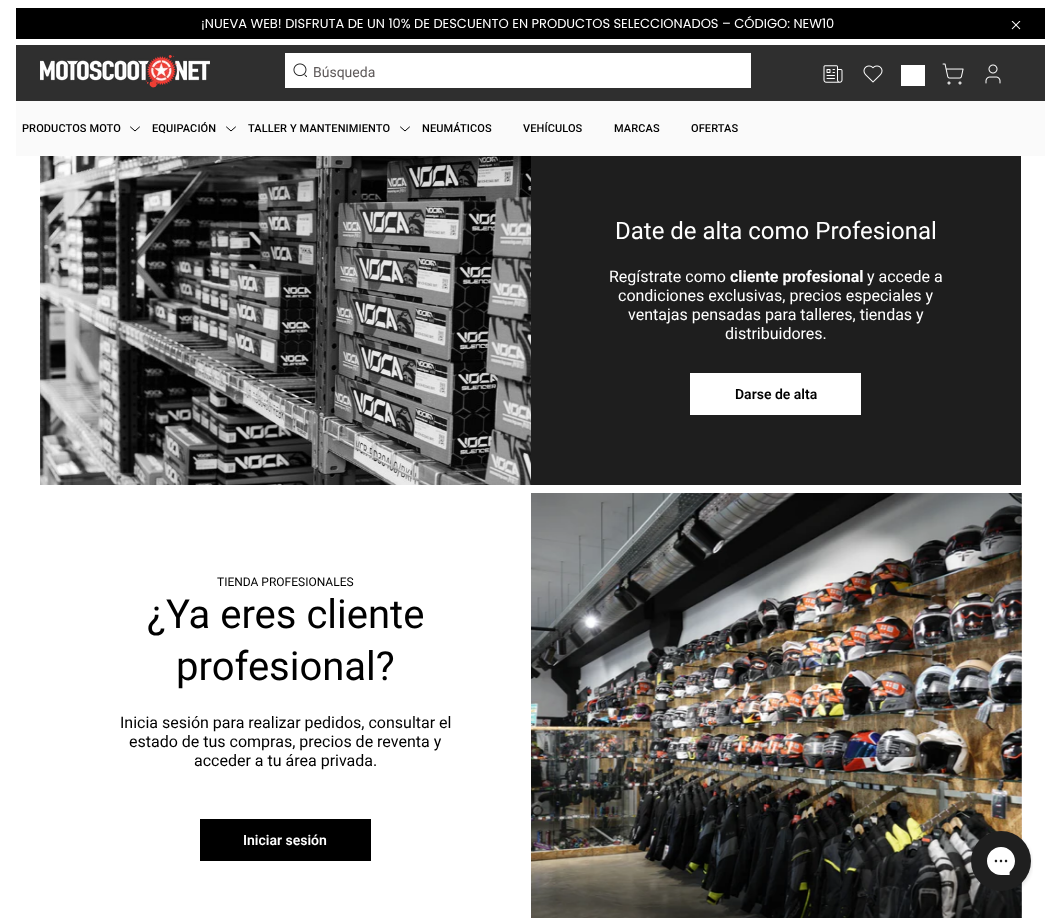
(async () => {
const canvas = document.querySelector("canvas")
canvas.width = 1061
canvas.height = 918
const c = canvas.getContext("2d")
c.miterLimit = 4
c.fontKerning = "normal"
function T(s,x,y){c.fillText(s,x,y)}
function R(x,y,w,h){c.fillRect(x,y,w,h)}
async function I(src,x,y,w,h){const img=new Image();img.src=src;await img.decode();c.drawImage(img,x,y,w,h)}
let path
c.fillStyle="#fff"
R(0,0,1061,918)
c.fillStyle="#000"
R(16,8,1029,31)
c.font="13px Poppins"
c.fillStyle="#fff"
T("¡NUEVA WEB! DISFRUTA DE UN 10% DE DESCUENTO EN PRODUCTOS SELECCIONADOS – CÓDIGO: NEW10",201,28)
await I("1.png",1011,21,10,9)
c.fillStyle="#2f2f2f"
R(16,45,1029,56)
await I("2.png",40,55,170,33)
c.fillStyle="#fff"
R(285,53,466,35)
await I("3.png",293,63,14,14)
c.font="14px Roboto"
c.fillStyle="#5e5959"
T("Búsqueda",313,77)
await I("4.png",823,65,20,18)
await I("5.png",863,65,20,18)
c.fillStyle="#fff"
R(901,65,24,21)
await I("6.png",942,63,22,22)
await I("7.png",985,64,16,20)
c.fillStyle="#fafafa"
R(16,101,1029,55)
c.letterSpacing="0.1px"
c.font="500 11px Roboto"
c.fillStyle="#000"
T("PRODUCTOS MOTO",22,132)
path = new Path2D("M130.5 127l4.5 4l4.5-4")
c.strokeStyle="#000"
c.lineCap="round"
c.lineJoin="round"
c.stroke(path)
T("EQUIPACIÓN",152,132)
path = new Path2D("M226.5 127l4.5 4l4.5-4")
c.stroke(path)
T("TALLER Y MANTENIMIENTO",248,132)
path = new Path2D("M400.5 127l4.5 4l4.5-4")
c.stroke(path)
T("NEUMÁTICOS",422,132)
T("VEHÍCULOS",523,132)
T("MARCAS",614,132)
T("OFERTAS",691,132)
await I("8.png",40,156,491,329)
c.fillStyle="#1e1e1e"
R(531,156,490,329)
c.letterSpacing="0px"
c.font="24px Roboto"
c.fillStyle="#fff"
T("Date de alta como Profesional",615,239)
c.font="16px Roboto"
T("Regístrate como",609,282)
c.font="bold 16px Roboto"
T("cliente profesional",730,282)
c.font="16px Roboto"
T("y accede a",867,282)
T("condiciones exclusivas, precios especiales y",618,301)
T("ventajas pensadas para talleres, tiendas y",628,320)
T("distribuidores.",725,339)
R(690,373,171,42)
c.font="600 14px Roboto"
c.fillStyle="#000"
T("Darse de alta",735,399)
c.font="12px Roboto"
T("TIENDA PROFESIONALES",217,586)
c.font="40px Roboto"
T("¿Ya eres cliente",147,628)
T("profesional?",176,680)
c.font="16px Roboto"
T("Inicia sesión para realizar pedidos, consultar el",120,728)
T("estado de tus compras, precios de reventa y",129,747)
T("acceder a tu área privada.",194,766)
R(200,819,171,42)
c.font="600 14px Roboto"
c.fillStyle="#fff"
T("Iniciar sesión",243,845)
await I("9.png",531,493,491,425)
await I("10.png",969,831,64,60)
})()
